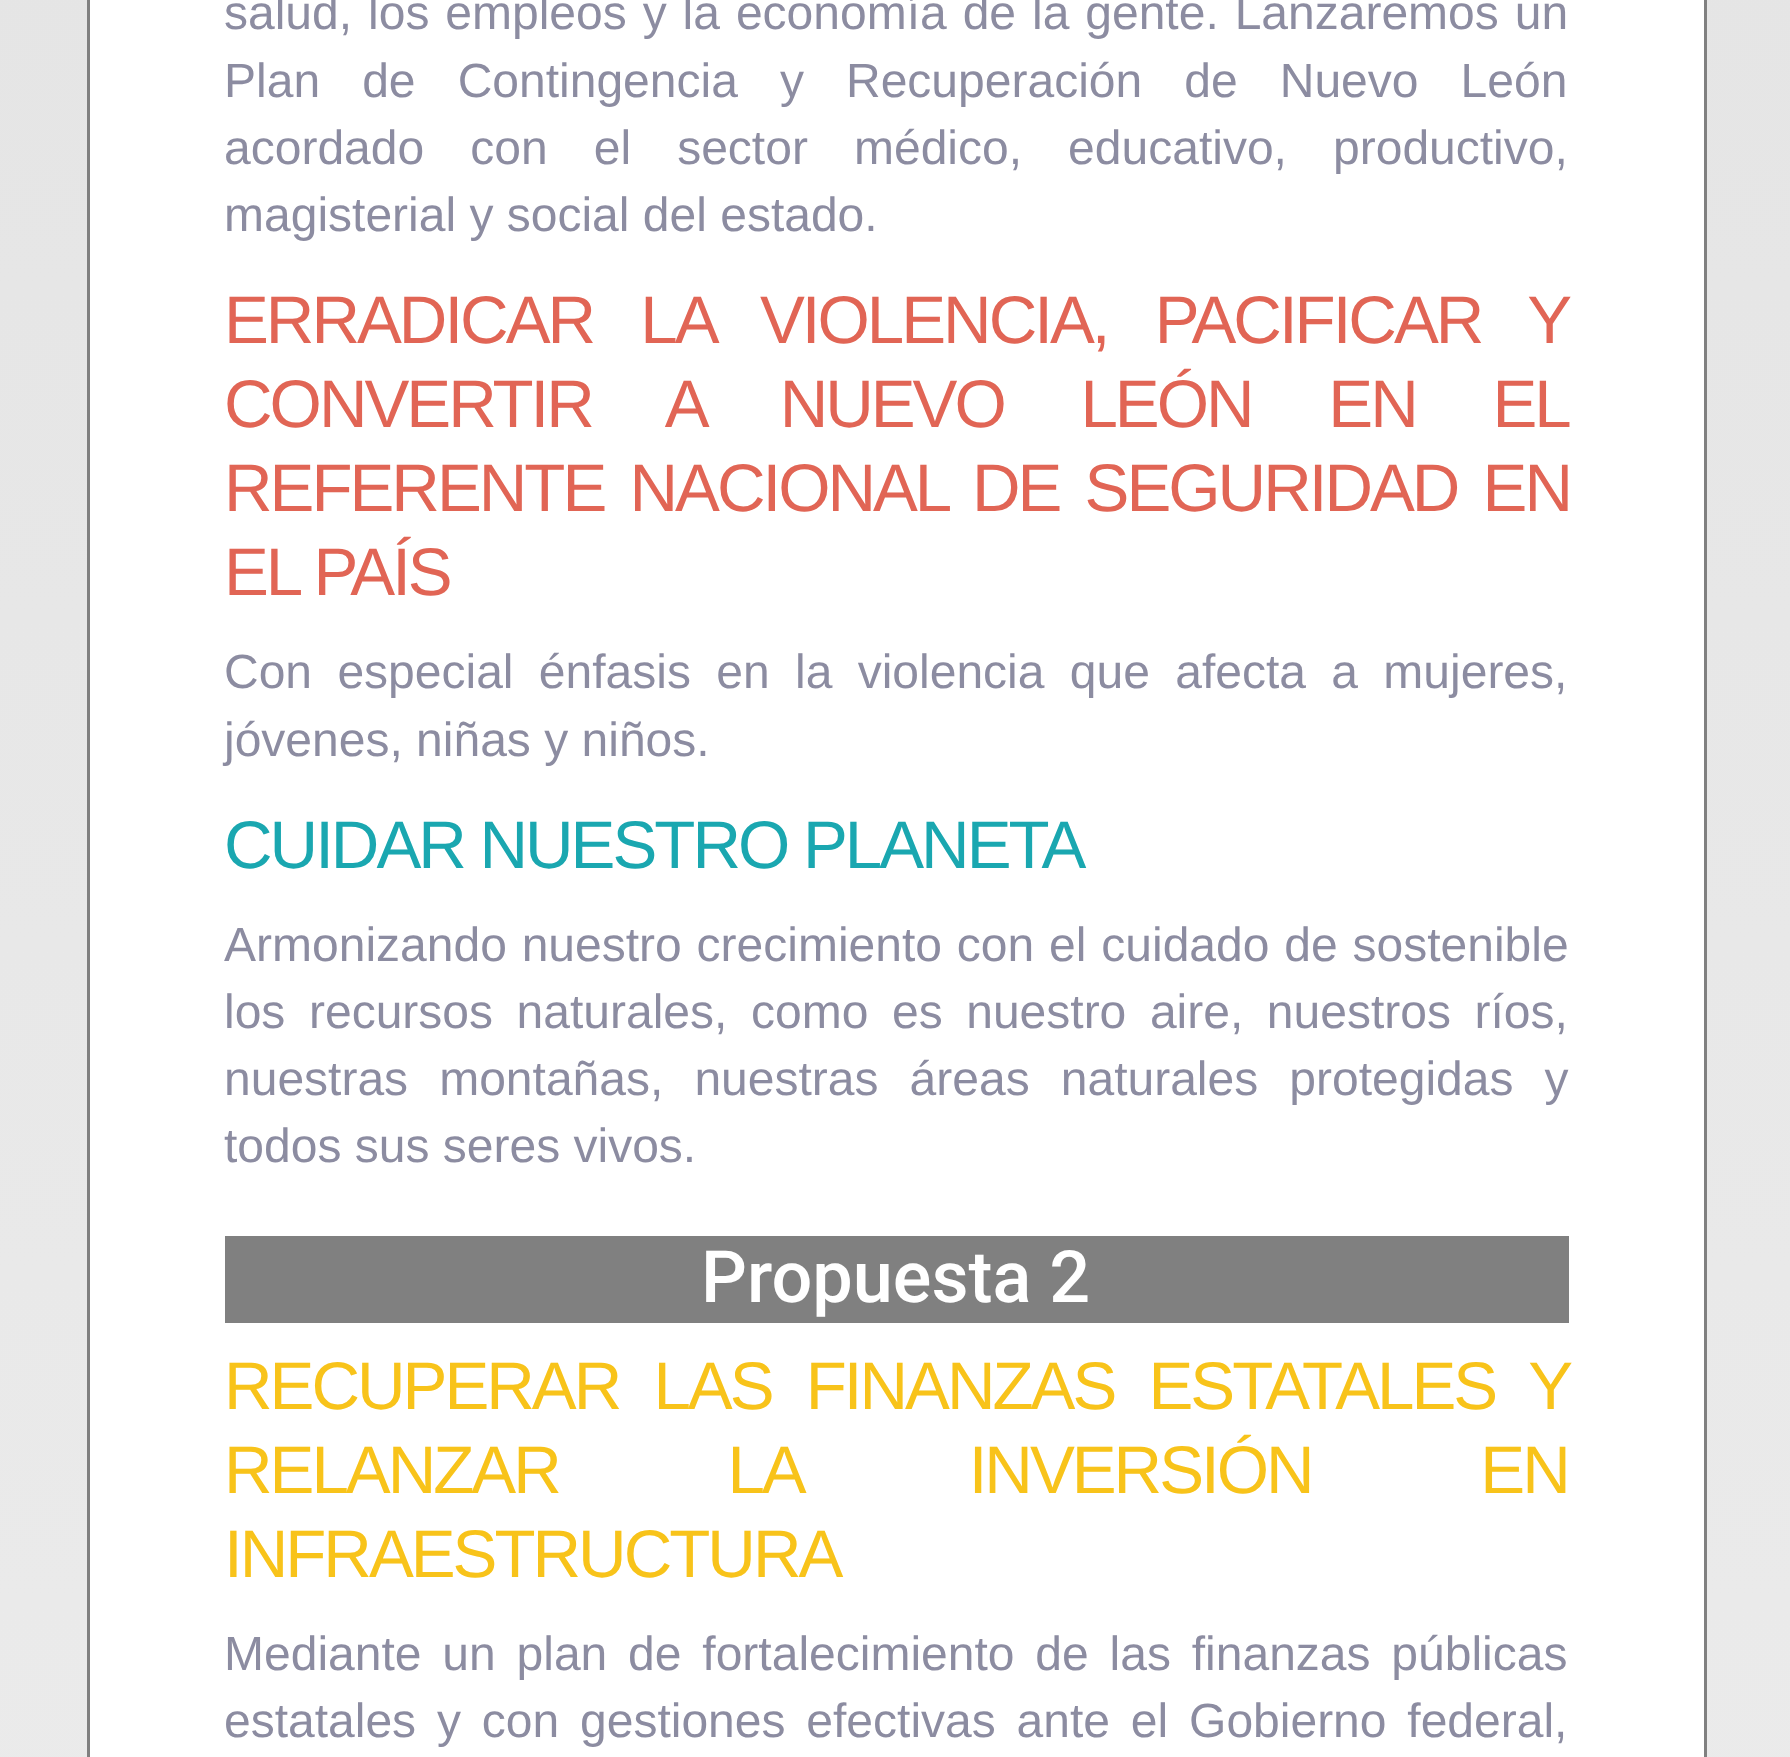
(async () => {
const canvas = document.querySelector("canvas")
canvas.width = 1790
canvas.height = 1757
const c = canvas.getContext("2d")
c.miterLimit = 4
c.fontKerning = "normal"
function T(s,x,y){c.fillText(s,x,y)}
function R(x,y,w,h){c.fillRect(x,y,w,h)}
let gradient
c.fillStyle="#fff"
R(0,0,1790,1757)
gradient = c.createLinearGradient(895,-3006,896,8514)
gradient.addColorStop(0,"#dcdcdc")
gradient.addColorStop(1,"#fff")
c.fillStyle = gradient
R(0,0,1790,1757)
c.fillStyle="#fff"
R(90,0,1614,1757)
c.fillStyle="#808080"
R(1704,0,3,1757)
R(87,0,3,1757)
c.wordSpacing="2.6px"
c.font="48px Liberation Sans"
c.fillStyle="#8c8ca1"
T("salud, los empleos y la economía de la gente. Lanzaremos un",224,29)
c.wordSpacing="28.75px"
T("Plan de Contingencia y Recuperación de Nuevo León",224,97)
c.wordSpacing="32.75px"
T("acordado con el sector médico, educativo, productivo,",224,164)
c.wordSpacing="0px"
T("magisterial y social del estado.",224,231)
c.letterSpacing="-3px"
c.wordSpacing="31.5px"
c.font="67.25px Liberation Sans"
c.fillStyle="#e16555"
T("ERRADICAR LA VIOLENCIA, PACIFICAR Y",224,343)
c.wordSpacing="61px"
T("CONVERTIR A NUEVO LEÓN EN EL",224,427)
c.wordSpacing="9.5px"
T("REFERENTE NACIONAL DE SEGURIDAD EN",224,511)
c.wordSpacing="0px"
T("EL PAÍS",224,595)
c.letterSpacing="0px"
c.wordSpacing="12px"
c.font="48px Liberation Sans"
c.fillStyle="#8c8ca1"
T("Con especial énfasis en la violencia que afecta a mujeres,",224,688)
c.wordSpacing="0px"
T("jóvenes, niñas y niños.",224,756)
c.letterSpacing="-3px"
c.font="67.25px Liberation Sans"
c.fillStyle="#1aa7b0"
T("CUIDAR NUESTRO PLANETA",224,868)
c.letterSpacing="0px"
c.wordSpacing="1.5px"
c.font="48px Liberation Sans"
c.fillStyle="#8c8ca1"
T("Armonizando nuestro crecimiento con el cuidado de sostenible",224,961)
c.wordSpacing="10.25px"
T("los recursos naturales, como es nuestro aire, nuestros ríos,",224,1028)
c.wordSpacing="17.75px"
T("nuestras montañas, nuestras áreas naturales protegidas y",224,1095)
c.wordSpacing="0px"
T("todos sus seres vivos.",224,1162)
c.fillStyle="#808080"
R(225,1236,1344,87)
c.font="500 72px Roboto"
c.fillStyle="#fff"
T("Propuesta 2",701,1302)
c.letterSpacing="-3px"
c.wordSpacing="18.5px"
c.font="67.25px Liberation Sans"
c.fillStyle="#f8c31a"
T("RECUPERAR LAS FINANZAS ESTATALES Y",224,1409)
c.wordSpacing="153px"
T("RELANZAR LA INVERSIÓN EN",224,1493)
c.wordSpacing="0px"
T("INFRAESTRUCTURA",224,1577)
c.letterSpacing="0px"
c.wordSpacing="7.5px"
c.font="48px Liberation Sans"
c.fillStyle="#8c8ca1"
T("Mediante un plan de fortalecimiento de las finanzas públicas",224,1670)
T("estatales y con gestiones efectivas ante el Gobierno federal,",224,1737)
})()
